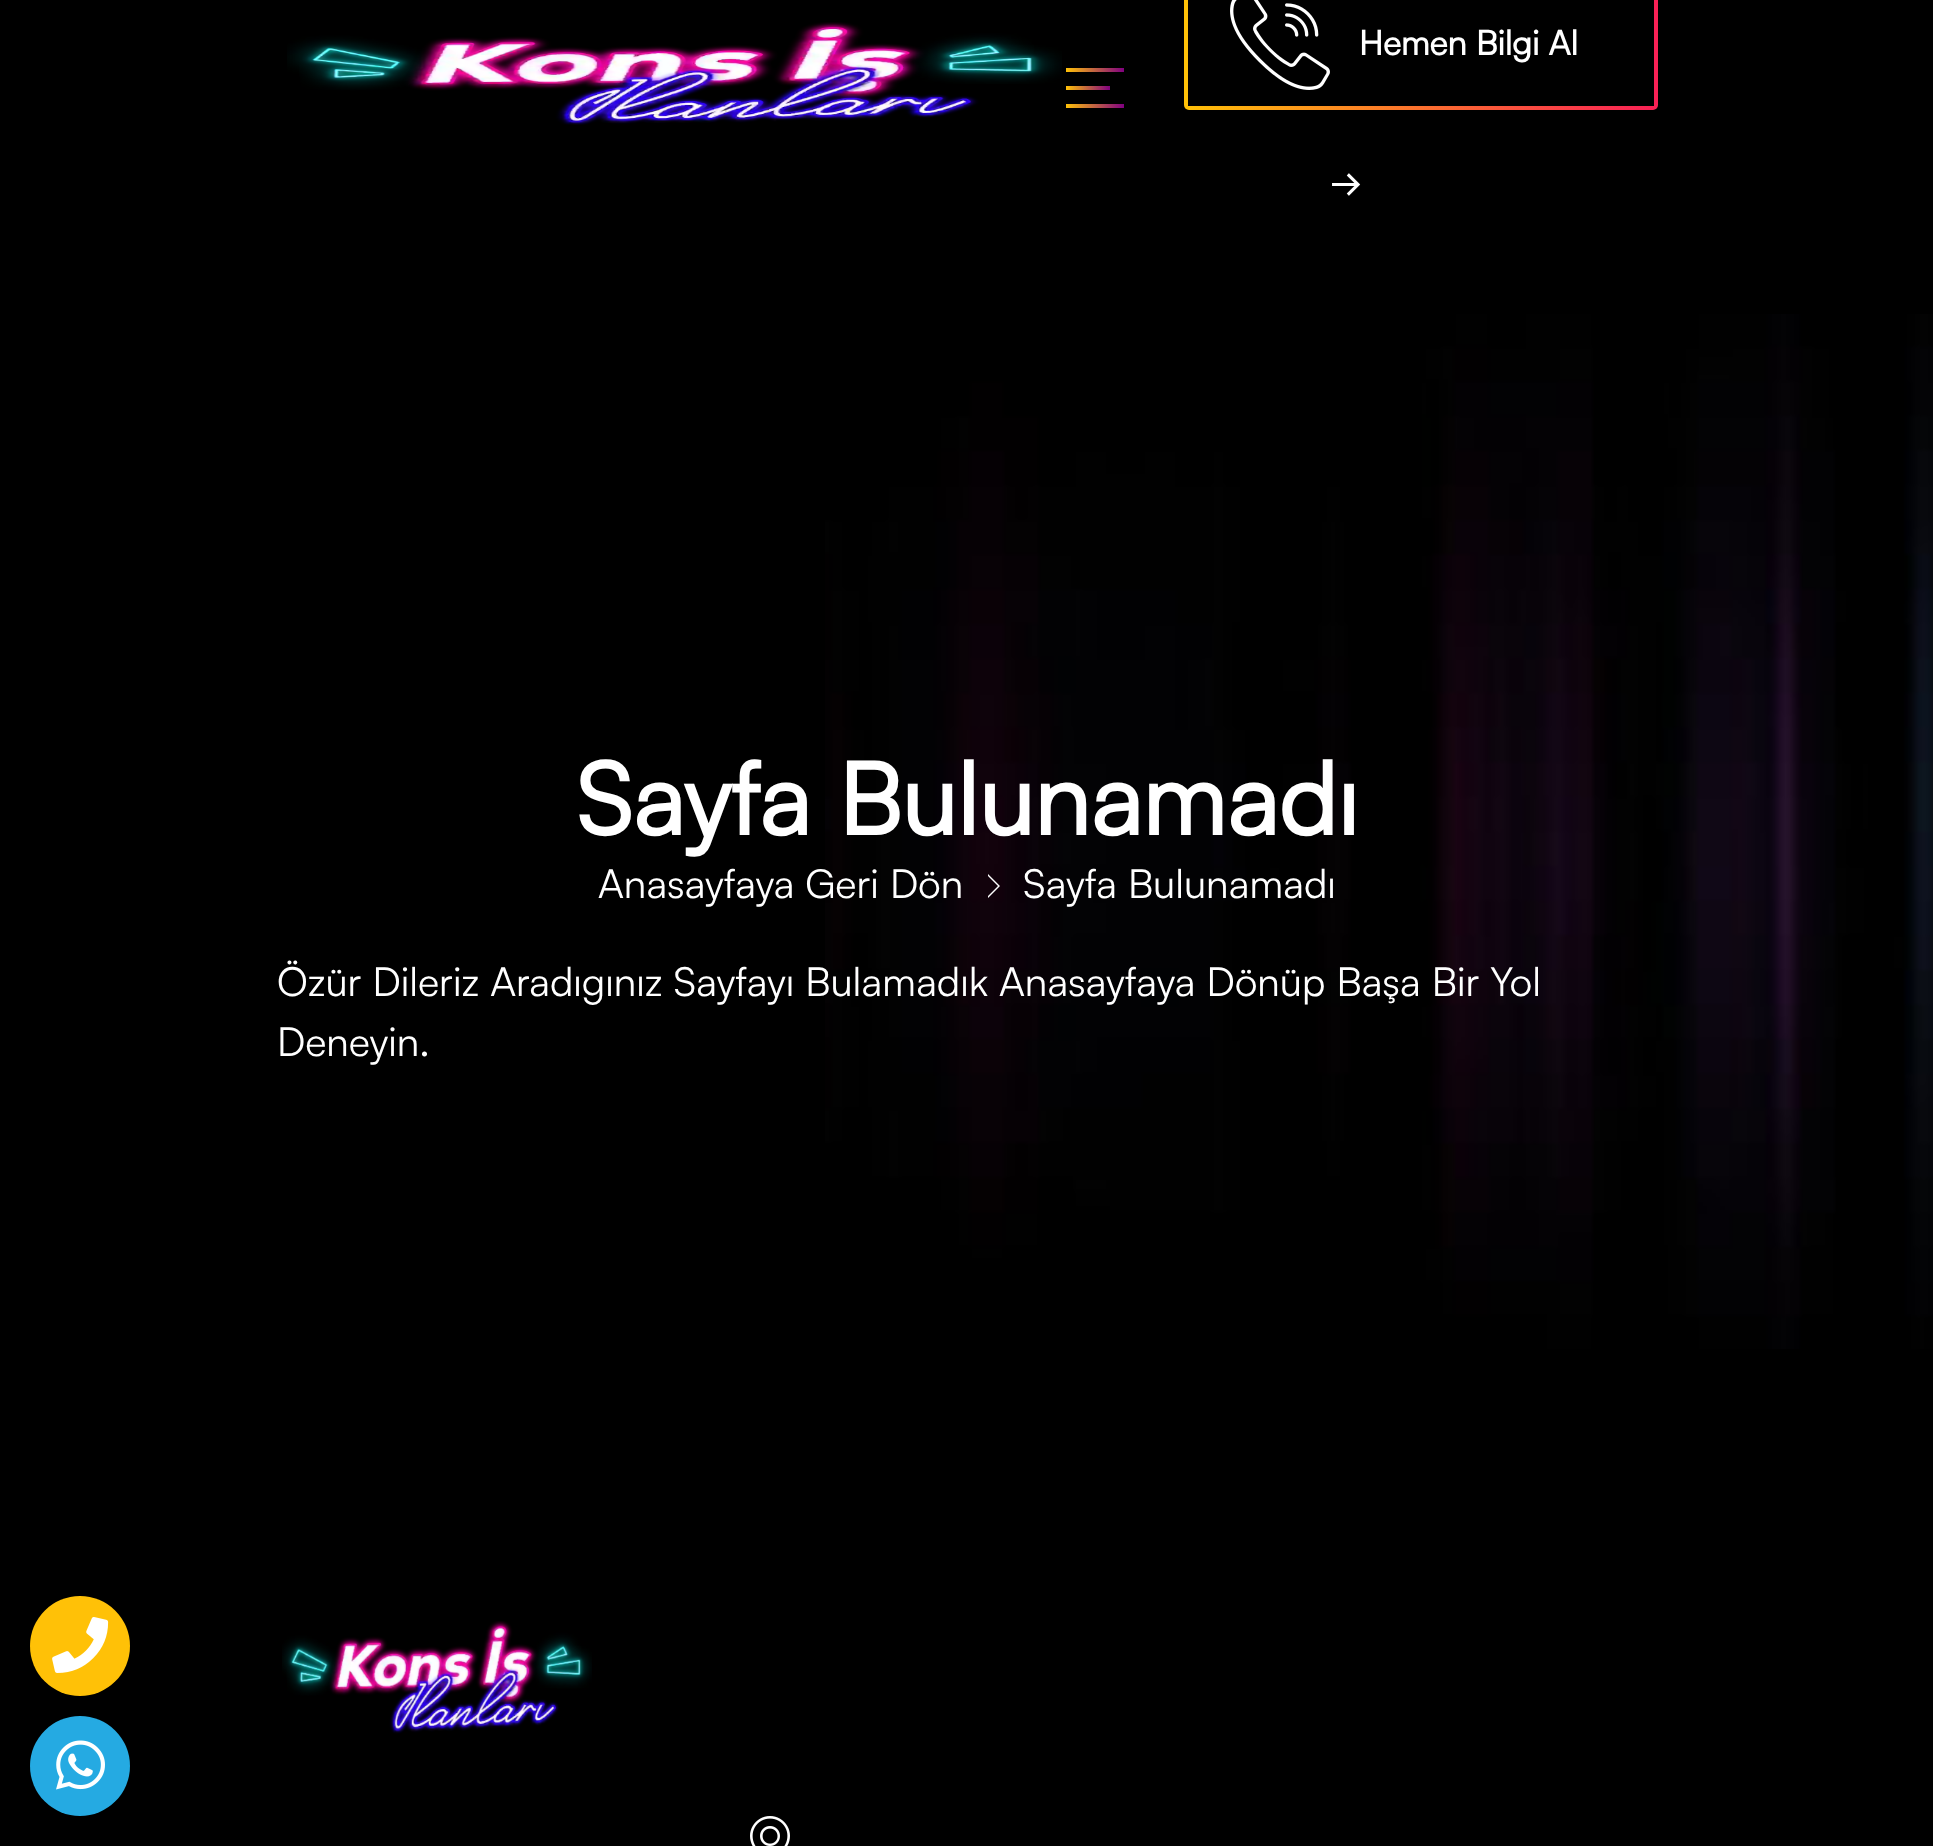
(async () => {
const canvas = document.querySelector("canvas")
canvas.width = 1933
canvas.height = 1846
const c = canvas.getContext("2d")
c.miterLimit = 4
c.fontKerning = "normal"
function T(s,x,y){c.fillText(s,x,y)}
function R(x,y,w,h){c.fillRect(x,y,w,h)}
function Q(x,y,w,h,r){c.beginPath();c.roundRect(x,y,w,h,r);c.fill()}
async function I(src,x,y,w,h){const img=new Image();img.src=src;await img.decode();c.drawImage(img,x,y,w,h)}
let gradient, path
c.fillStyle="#000"
R(0,0,1933,1846)
await I("1.png",287,22,775,103)
gradient = c.createLinearGradient(1066,70,1124,70)
gradient.addColorStop(0,"#ffc107")
gradient.addColorStop(1,"#800080")
c.fillStyle = gradient
R(1066,68,58,4)
gradient = c.createLinearGradient(1066,88,1110,88)
gradient.addColorStop(0,"#ffc107")
gradient.addColorStop(1,"#800080")
c.fillStyle = gradient
R(1066,86,44,4)
gradient = c.createLinearGradient(1066,106,1124,106)
gradient.addColorStop(0,"#ffc107")
gradient.addColorStop(1,"#800080")
c.fillStyle = gradient
R(1066,104,58,4)
gradient = c.createLinearGradient(1184,40,1658,40)
gradient.addColorStop(0,"#ffc107")
gradient.addColorStop(1,"#f92056")
c.fillStyle = gradient
Q(1184,-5,474,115,5)
c.fillStyle="#000"
R(1188,0,466,106)
await I("2.png",1230,0,100,90)
c.font="bold 34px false"
c.fillStyle="#fff"
T("Hemen Bilgi Al",1359,55)
T("→",1330,195)
await I("3.png",825,314,1108,1035)
c.font="bold 100px false"
T("Sayfa Bulunamadı",576,835)
c.font="40px false"
T("Anasayfaya Geri Dön",598,898)
path = new Path2D("M998 886l-10 10v2l12-12l-12-12v2z")
c.fill(path)
T("Sayfa Bulunamadı",1023,898)
T("Özür Dileriz Aradıgınız Sayfayı Bulamadık Anasayfaya Dönüp Başa Bir Yol",277,996)
T("Deneyin.",277,1056)
c.fillStyle="#ffc107"
c.beginPath()
c.arc(80,1646,50,0,7)
c.fill()
await I("4.png",52,1617,57,56)
c.fillStyle="#25aae2"
c.beginPath()
c.arc(80,1766,50,0,7)
c.fill()
await I("5.png",56,1740,49,50)
await I("6.png",282,1621,310,113)
await I("7.png",750,1816,40,30)
})()
